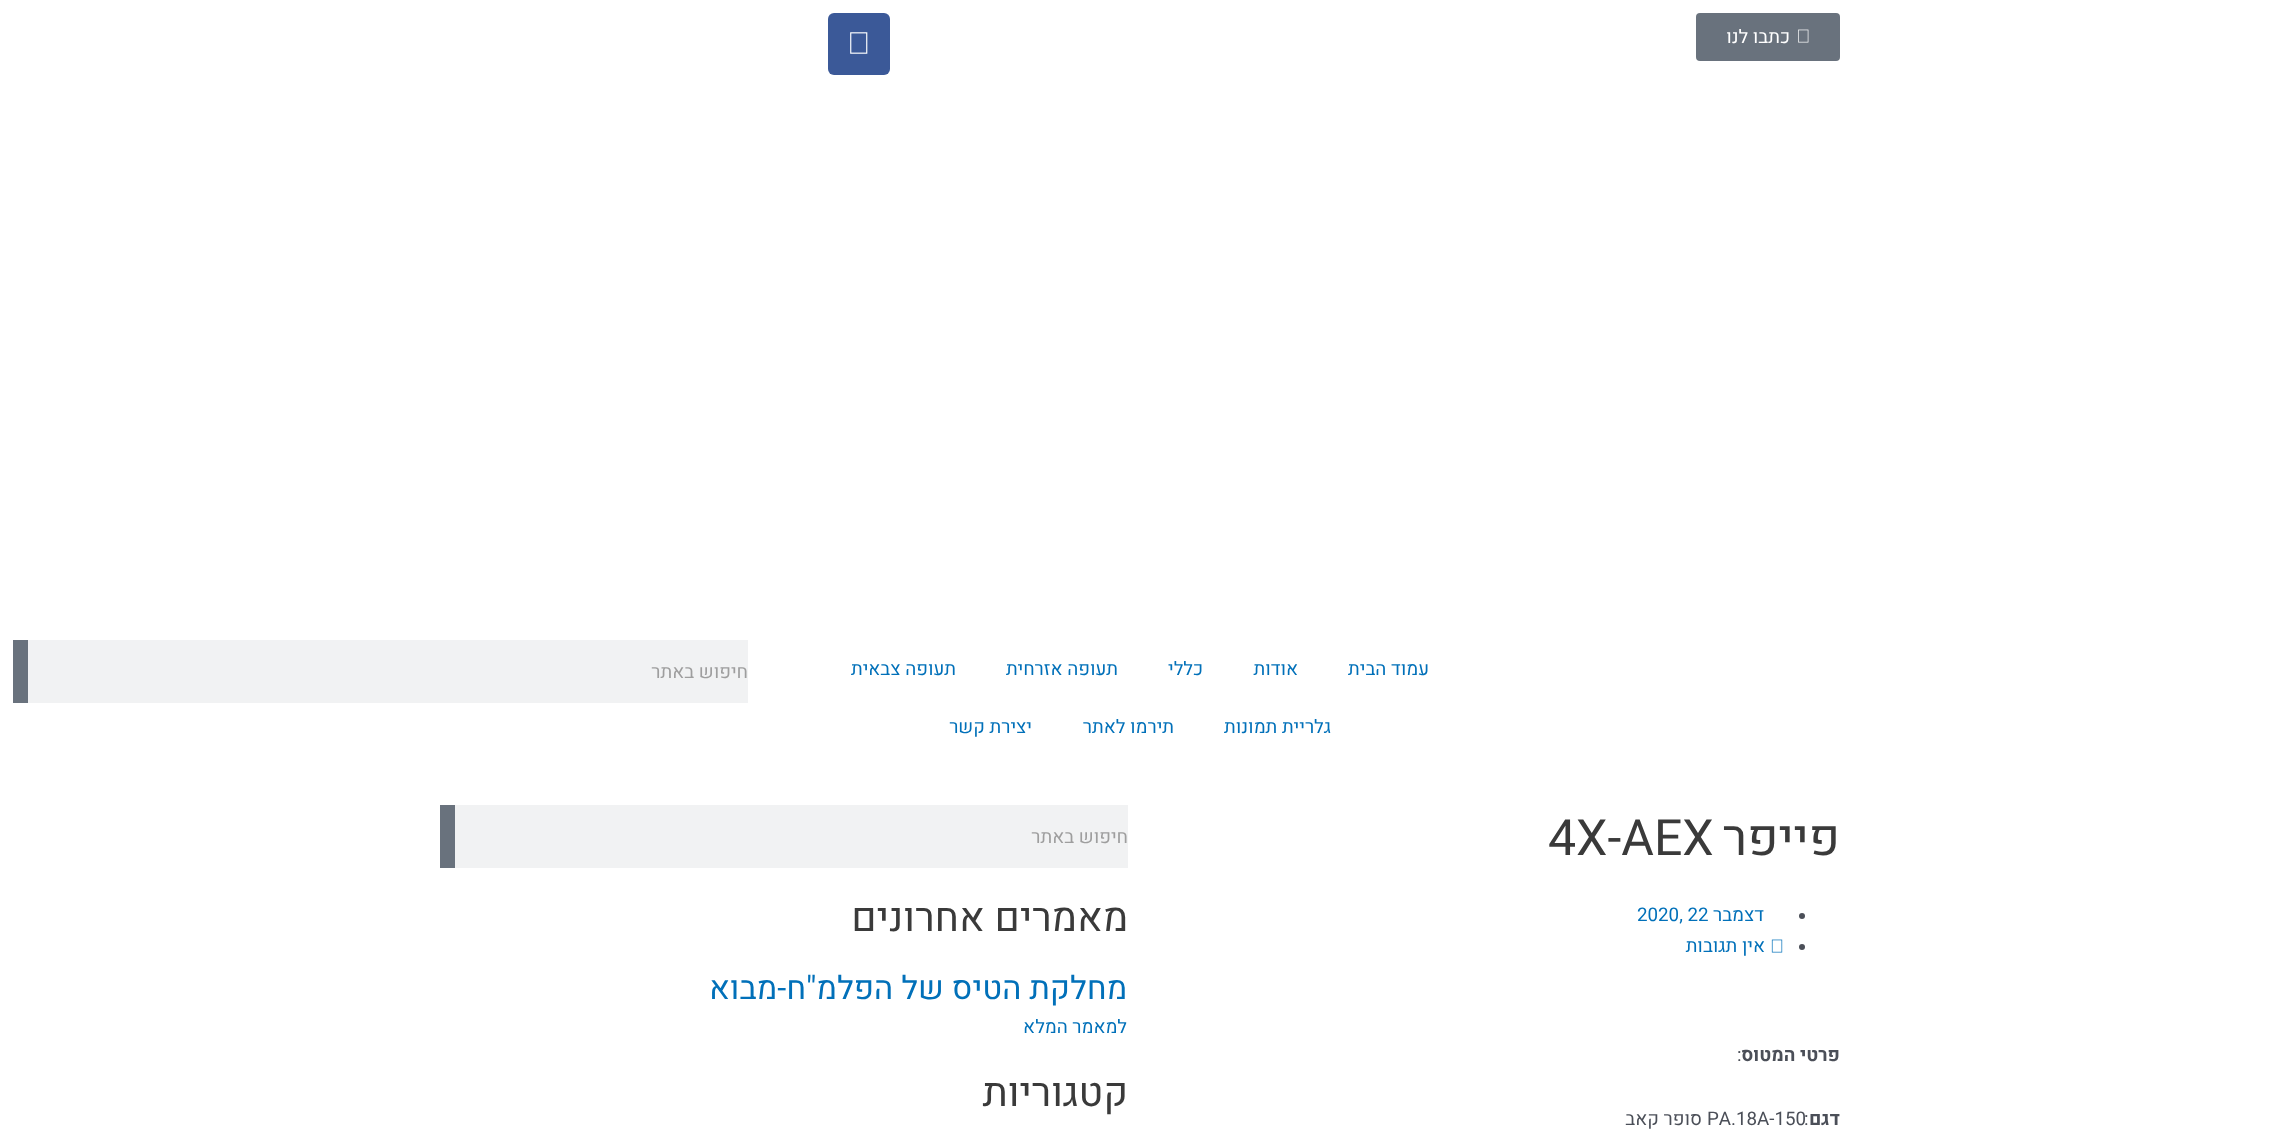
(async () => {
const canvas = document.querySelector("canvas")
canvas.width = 2279
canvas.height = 1141
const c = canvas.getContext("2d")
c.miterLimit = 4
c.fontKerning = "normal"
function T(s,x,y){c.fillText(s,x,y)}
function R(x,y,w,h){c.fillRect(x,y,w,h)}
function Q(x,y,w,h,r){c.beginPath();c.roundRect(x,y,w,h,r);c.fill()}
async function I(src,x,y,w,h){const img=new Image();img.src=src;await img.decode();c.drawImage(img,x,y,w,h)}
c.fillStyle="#fff"
R(0,0,2279,1141)
c.fillStyle="#69727d"
Q(1696,13,144,48,4)
await I("1.png",1798,29,11,14)
c.direction="rtl"
c.font="18.75px Heebo"
c.fillStyle="#fff"
T("כתבו לנו",1790,43)
c.fillStyle="#3b5998"
Q(828,13,62,62,6)
await I("2.png",850,32,18,22)
c.fillStyle="#0170b9"
T("עמוד הבית",1429,675)
T("אודות",1298,675)
T("כללי",1203,675)
T("תעופה אזרחית",1118,675)
T("תעופה צבאית",956,675)
T("גלריית תמונות",1331,733)
T("תירמו לאתר",1174,733)
T("יצירת קשר",1032,733)
c.fillStyle="#f1f2f3"
R(28,640,720,63)
c.fillStyle="#9e9e9e"
T("חיפוש באתר",748,678)
c.fillStyle="#69727d"
R(13,640,15,63)
c.font="50px Heebo"
c.fillStyle="#3a3a3a"
T("פייפר",1840,855)
c.direction="ltr"
T("4X-AEX",1548,855)
c.fillStyle="#4b4f58"
c.beginPath()
c.arc(1802,916,3,0,7)
c.fill()
c.direction="rtl"
c.font="18.75px Heebo"
c.fillStyle="#0170b9"
T("דצמבר",1764,921)
c.direction="ltr"
T("2020, 22",1637,921)
c.fillStyle="#4b4f58"
c.beginPath()
c.arc(1802,947,3,0,7)
c.fill()
await I("3.png",1771,939,12,14)
c.direction="rtl"
c.fillStyle="#0170b9"
T("אין תגובות",1765,952)
c.font="bold 18.75px Heebo"
c.fillStyle="#4b4f58"
T("פרטי המטוס",1840,1061)
c.direction="ltr"
c.font="18.75px Heebo"
T(":",1737,1061)
c.direction="rtl"
c.font="bold 18.75px Heebo"
T("דגם",1840,1125)
c.direction="ltr"
c.font="18.75px Heebo"
T(":",1804,1125)
T("PA.18A-150",1707,1125)
c.direction="rtl"
T("סופר קאב",1702,1125)
c.fillStyle="#f1f2f3"
R(455,805,673,63)
c.fillStyle="#9e9e9e"
T("חיפוש באתר",1128,843)
c.fillStyle="#69727d"
R(440,805,15,63)
c.font="40px Heebo"
c.fillStyle="#3a3a3a"
T("מאמרים אחרונים",1128,931)
c.font="32.5px Heebo"
c.fillStyle="#0170b9"
T("מחלקת הטיס של הפלמ\"ח-מבוא",1127,999)
c.font="18.75px Heebo"
T("למאמר המלא",1127,1033)
c.font="40px Heebo"
c.fillStyle="#3a3a3a"
T("קטגוריות",1128,1106)
})()
